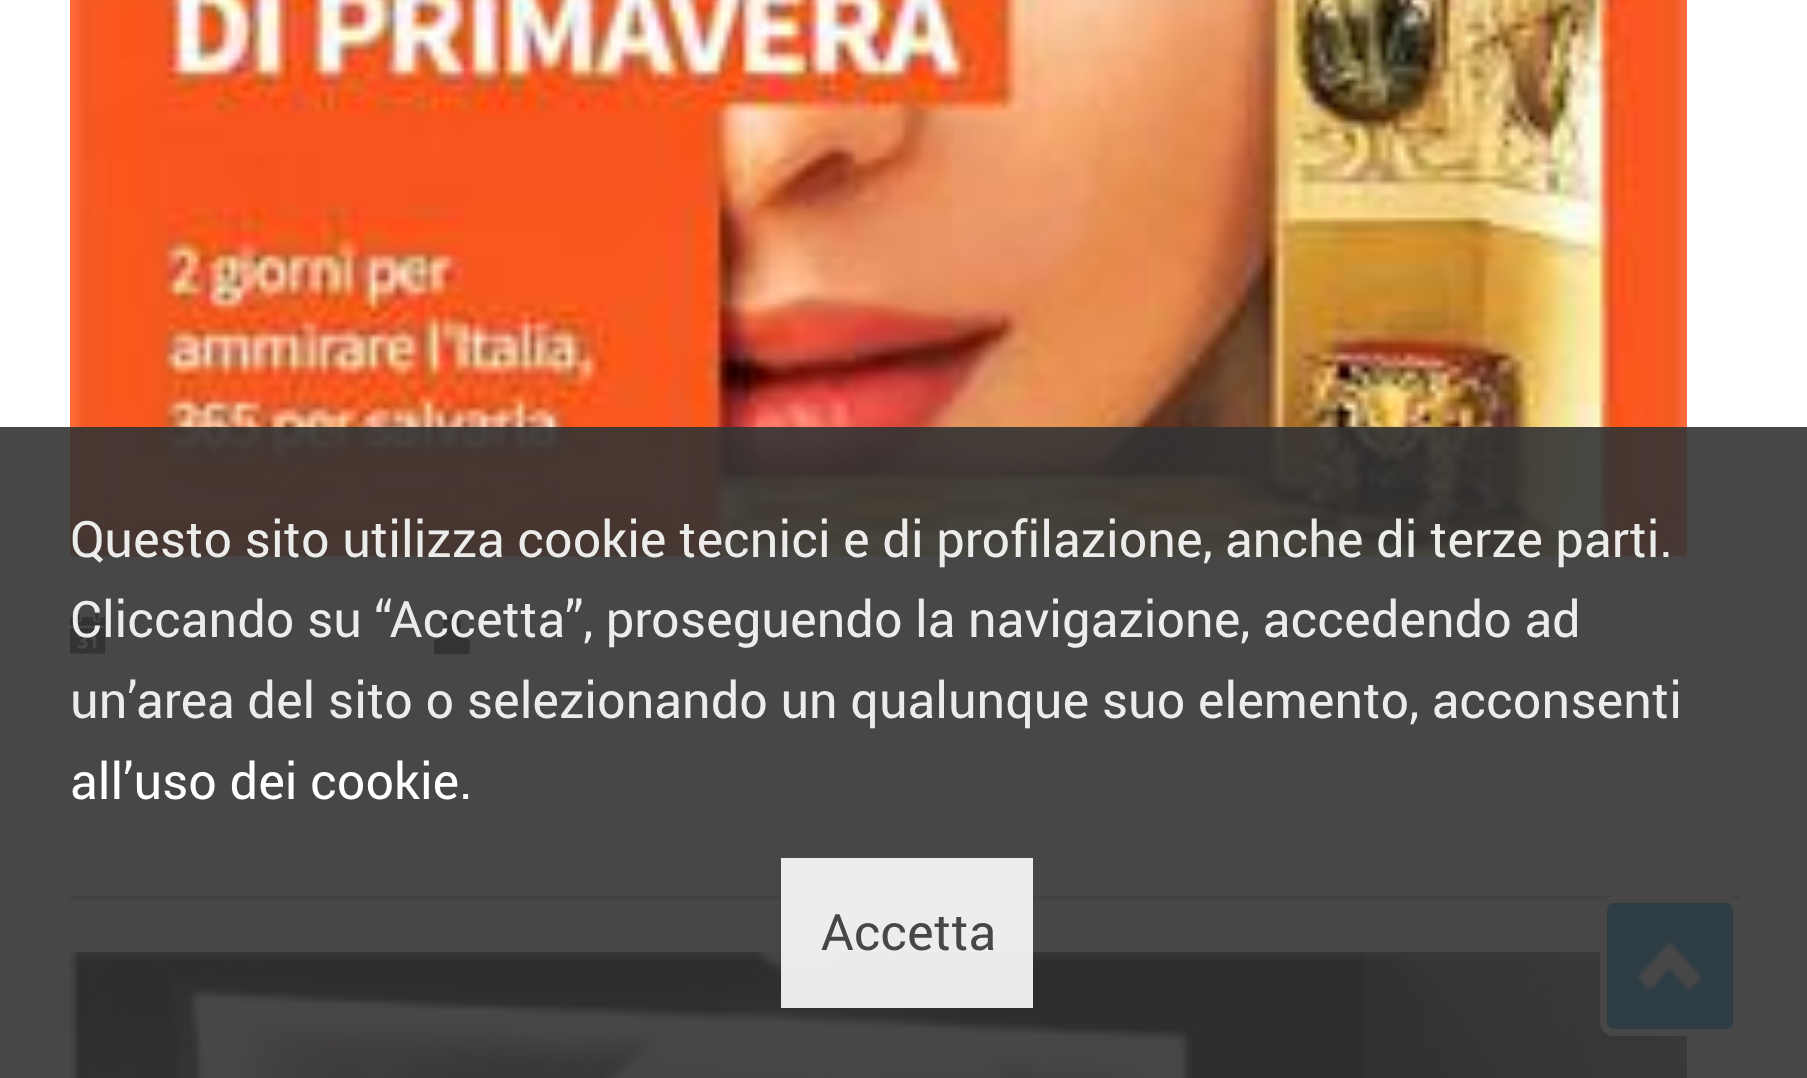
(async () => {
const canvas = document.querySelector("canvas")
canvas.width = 1807
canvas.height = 1078
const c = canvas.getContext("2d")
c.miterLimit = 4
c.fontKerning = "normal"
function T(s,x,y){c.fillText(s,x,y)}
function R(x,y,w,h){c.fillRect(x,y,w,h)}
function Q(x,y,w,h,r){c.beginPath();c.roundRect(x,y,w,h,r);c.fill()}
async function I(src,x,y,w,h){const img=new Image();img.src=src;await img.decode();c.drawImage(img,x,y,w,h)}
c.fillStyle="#fff"
R(0,0,1807,1078)
c.fillStyle="#ccc"
R(70,896,1670,4)
await I("1.png",70,0,1617,557)
await I("2.png",70,614,36,40)
await I("3.png",434,613,36,41)
await I("4.png",70,952,1617,126)
c.fillStyle="#0091d7"
Q(1600,896,140,140,14)
await I("5.png",1637,941,65,50)
c.beginPath()
c.roundRect(1603.5,899.5,133,133,10.5)
c.strokeStyle="#fff"
c.lineWidth=7
c.stroke()
c.fillStyle="#333333e6"
R(0,427,1807,651)
c.font="50.4px Roboto"
c.fillStyle="#ececeb"
T("Questo sito utilizza cookie tecnici e di profilazione, anche di terze parti.",70,557)
T("Cliccando su “Accetta”, proseguendo la navigazione, accedendo ad",70,637)
T("un’area del sito o selezionando un qualunque suo elemento, acconsenti",70,718)
c.fillStyle="#fff"
T("all’uso dei cookie.",70,799)
c.fillStyle="#ffffffe6"
R(781,858,252,150)
c.fillStyle="#474747"
T("Accetta",821,950)
})()
